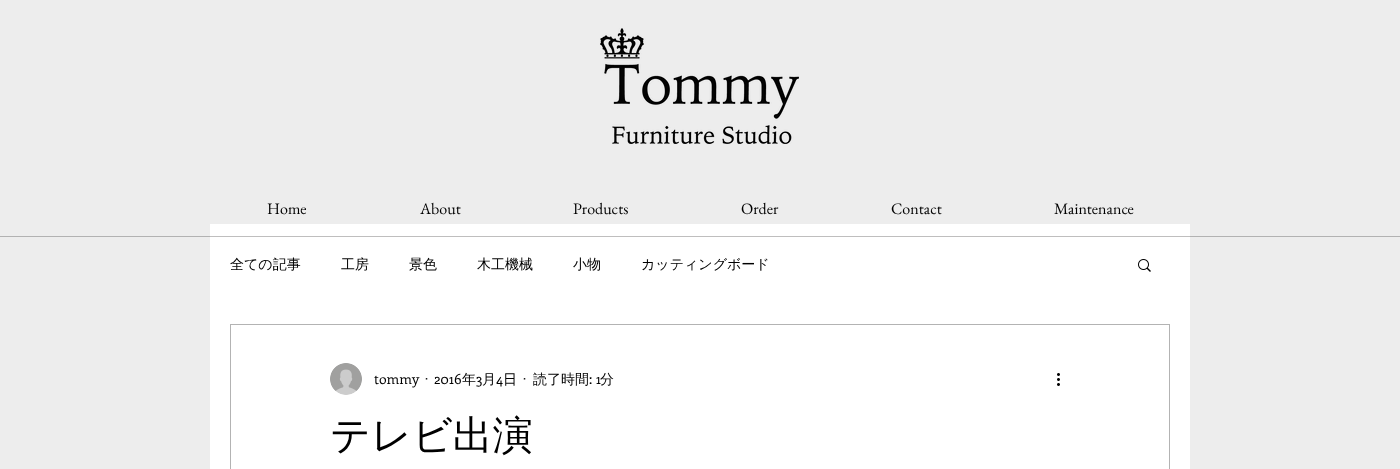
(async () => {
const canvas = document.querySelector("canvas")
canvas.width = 1400
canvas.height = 469
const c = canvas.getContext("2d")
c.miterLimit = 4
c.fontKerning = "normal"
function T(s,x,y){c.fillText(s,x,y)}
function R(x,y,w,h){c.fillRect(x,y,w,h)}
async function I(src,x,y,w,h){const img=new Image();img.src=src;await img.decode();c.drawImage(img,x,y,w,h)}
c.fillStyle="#ededed"
R(0,0,1400,469)
await I("1.png",600,28,199,116)
c.font="16px EB Garamond"
c.fillStyle="#000"
T("Home",267,214)
T("About",420,214)
T("Products",573,214)
T("Order",741,214)
T("Contact",891,214)
T("Maintenance",1054,214)
c.fillStyle="#b2b2b2"
R(0,236,1400,1)
c.fillStyle="#fff"
R(210,224,980,245)
c.fillStyle="#bfbebe"
R(210,236,980,1)
c.font="500 14px WenQuanYi Zen Hei"
c.fillStyle="#000"
T("全ての記事",230,269)
T("工房",341,269)
T("景色",409,269)
T("木工機械",477,269)
T("小物",573,269)
T("カッティングボード",641,269)
await I("2.png",1138,259,13,13)
c.strokeStyle="#b3b3b3"
c.strokeRect(230.5,324.5,939,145)
await I("3.png",330,363,32,32)
c.font="14px Enriqueta"
T("tommy",374,384)
T("·",425,384)
T("2016",434,384)
c.font="500 14px WenQuanYi Zen Hei"
T("年",462,384)
c.font="14px Enriqueta"
T("3",476,384)
c.font="500 14px WenQuanYi Zen Hei"
T("月",482,384)
c.font="14px Enriqueta"
T("4",496,384)
c.font="500 14px WenQuanYi Zen Hei"
T("日",503,384)
c.font="14px Enriqueta"
T("·",523,384)
c.font="500 14px WenQuanYi Zen Hei"
T("読了時間",533,384)
c.font="14px Enriqueta"
T(": 1",589,384)
c.font="500 14px WenQuanYi Zen Hei"
T("分",600,384)
await I("4.png",1057,373,3,13)
c.font="500 40px WenQuanYi Zen Hei"
T("テレビ出演",330,449)
})()
